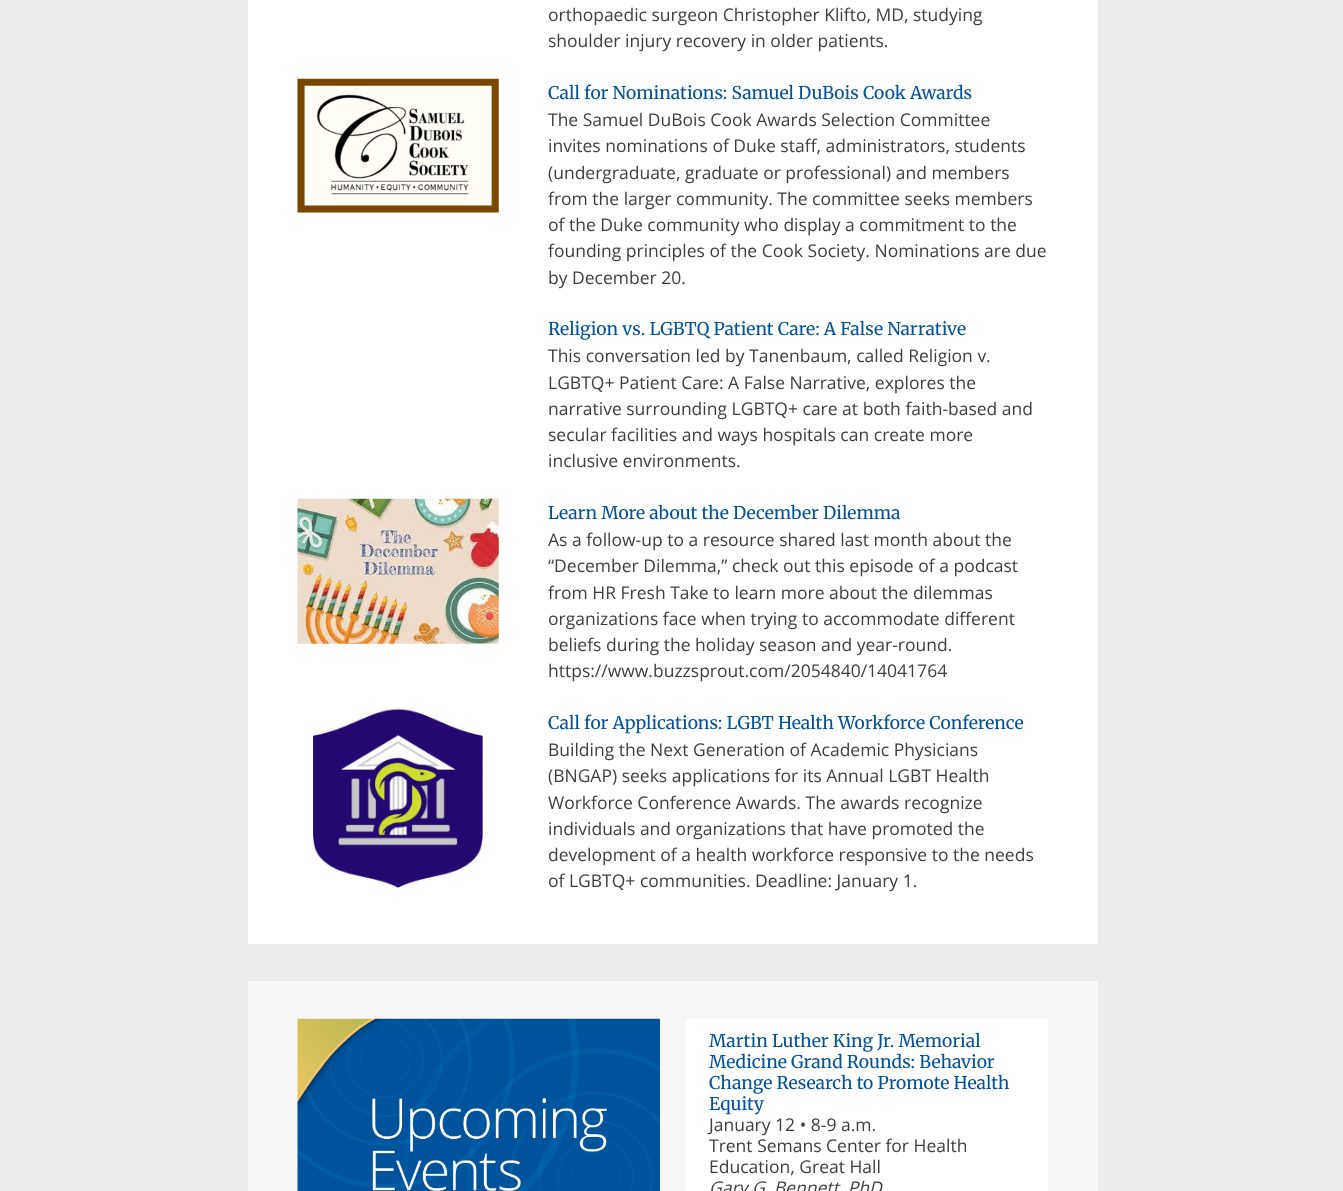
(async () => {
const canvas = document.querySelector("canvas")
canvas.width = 1343
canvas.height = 1191
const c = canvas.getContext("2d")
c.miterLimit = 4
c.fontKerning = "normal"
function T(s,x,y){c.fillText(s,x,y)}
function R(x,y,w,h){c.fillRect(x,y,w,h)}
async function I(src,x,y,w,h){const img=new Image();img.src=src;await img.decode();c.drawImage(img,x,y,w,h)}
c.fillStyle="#ececec"
R(0,0,1343,1191)
c.fillStyle="#fff"
R(248,0,850,944)
c.font="17.5px Open Sans"
c.fillStyle="#3e3e3e"
T("orthopaedic surgeon Christopher Klifto, MD, studying",548,21)
T("shoulder injury recovery in older patients.",548,47)
await I("1.png",297,78,202,135)
c.font="17.5px Merriweather"
c.fillStyle="#00539b"
T("Call for Nominations: Samuel DuBois Cook Awards",548,99)
c.font="17.5px Open Sans"
c.fillStyle="#3e3e3e"
T("The Samuel DuBois Cook Awards Selection Committee",548,126)
T("invites nominations of Duke staff, administrators, students",548,152)
T("(undergraduate, graduate or professional) and members",548,179)
T("from the larger community. The committee seeks members",548,205)
T("of the Duke community who display a commitment to the",548,231)
T("founding principles of the Cook Society. Nominations are due",548,257)
T("by December 20.",548,284)
c.font="17.5px Merriweather"
c.fillStyle="#00539b"
T("Religion vs. LGBTQ Patient Care: A False Narrative",548,335)
c.font="17.5px Open Sans"
c.fillStyle="#3e3e3e"
T("This conversation led by Tanenbaum, called Religion v.",548,362)
T("LGBTQ+ Patient Care: A False Narrative, explores the",548,389)
T("narrative surrounding LGBTQ+ care at both faith-based and",548,415)
T("secular facilities and ways hospitals can create more",548,441)
T("inclusive environments.",548,467)
await I("2.png",297,498,202,146)
c.font="17.5px Merriweather"
c.fillStyle="#00539b"
T("Learn More about the December Dilemma",548,519)
c.font="17.5px Open Sans"
c.fillStyle="#3e3e3e"
T("As a follow-up to a resource shared last month about the",548,546)
T("“December Dilemma,” check out this episode of a podcast",548,572)
T("from HR Fresh Take to learn more about the dilemmas",548,599)
T("organizations face when trying to accommodate different",548,625)
T("beliefs during the holiday season and year-round.",548,651)
T("https://www.buzzsprout.com/2054840/14041764",548,677)
await I("3.png",312,708,171,180)
c.font="17.5px Merriweather"
c.fillStyle="#00539b"
T("Call for Applications: LGBT Health Workforce Conference",548,729)
c.font="17.5px Open Sans"
c.fillStyle="#3e3e3e"
T("Building the Next Generation of Academic Physicians",548,756)
T("(BNGAP) seeks applications for its Annual LGBT Health",548,782)
T("Workforce Conference Awards. The awards recognize",548,809)
T("individuals and organizations that have promoted the",548,835)
T("development of a health workforce responsive to the needs",548,861)
T("of LGBTQ+ communities. Deadline: January 1.",548,887)
c.fillStyle="#f7f7f7"
R(248,981,850,210)
await I("4.png",297,1018,363,173)
c.fillStyle="#fff"
R(685,1019,363,172)
c.font="17.5px Merriweather"
c.fillStyle="#00539b"
T("Martin Luther King Jr. Memorial",709,1047)
T("Medicine Grand Rounds: Behavior",709,1068)
T("Change Research to Promote Health",709,1089)
T("Equity",709,1110)
c.font="17.5px Open Sans"
c.fillStyle="#3e3e3e"
T("January 12 • 8-9 a.m.",709,1131)
T("Trent Semans Center for Health",709,1152)
T("Education, Great Hall",709,1173)
c.font="italic 17.5px Open Sans"
T("Gary G. Bennett, PhD",709,1194)
})()
